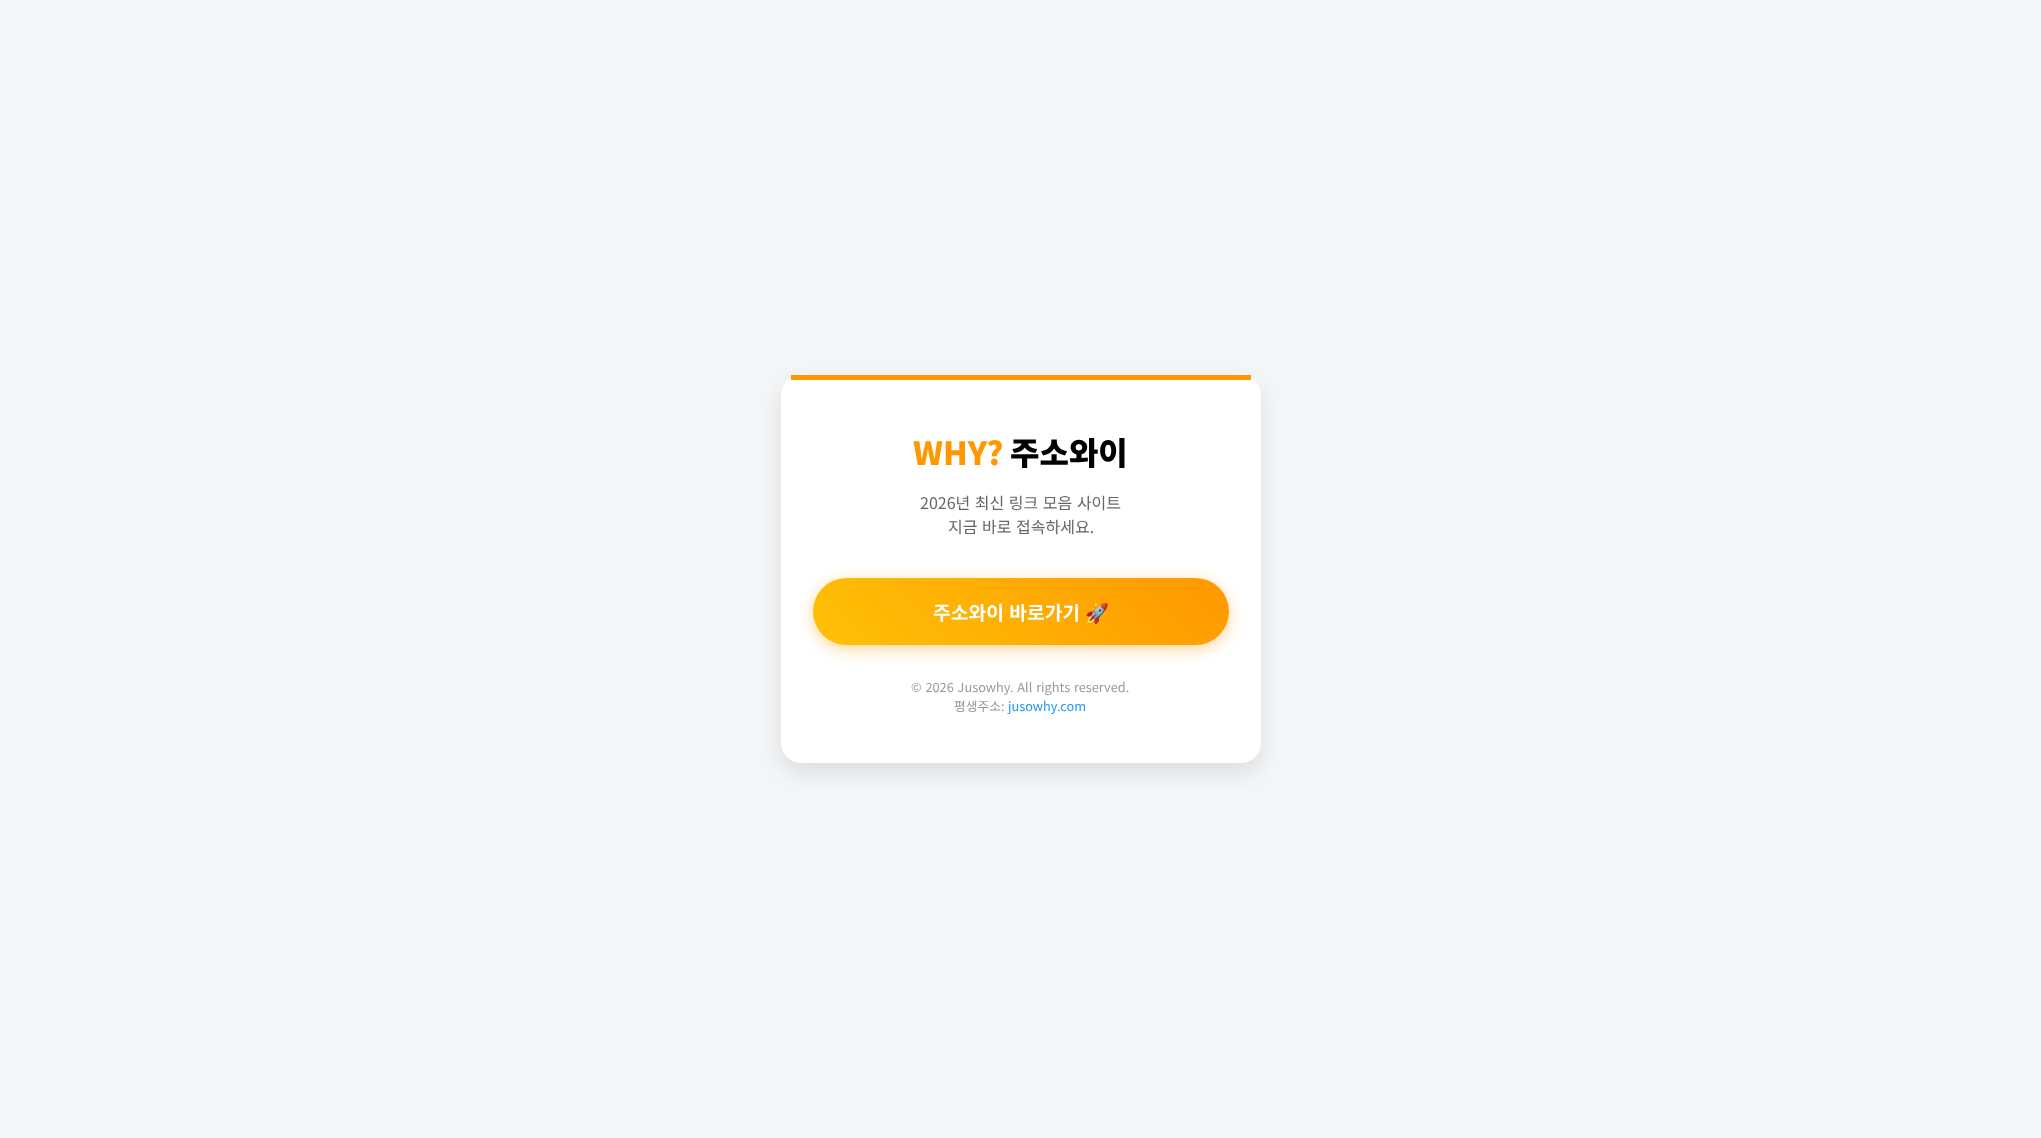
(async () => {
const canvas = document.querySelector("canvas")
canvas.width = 2041
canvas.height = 1138
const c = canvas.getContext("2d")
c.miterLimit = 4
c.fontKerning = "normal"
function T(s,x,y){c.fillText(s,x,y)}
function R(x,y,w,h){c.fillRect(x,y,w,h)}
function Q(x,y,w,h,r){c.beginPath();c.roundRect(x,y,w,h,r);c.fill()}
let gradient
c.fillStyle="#f4f6f8"
R(0,0,2041,1138)
c.fillStyle="#0000001a"
c.filter="blur(12.5px)"
c.beginPath()
c.roundRect(781,385,480,388,20)
c.fill()
c.filter="none"
c.fillStyle="#fff"
Q(781,375,480,388,20)
c.fillStyle="#ff9800"
R(791,375,460,5)
c.font="900 32px Noto Sans KR"
T("WHY?",913,465)
c.fillStyle="#000"
T("주소와이",1010,465)
c.wordSpacing="1px"
c.font="16px Noto Sans KR"
c.fillStyle="#666"
T("2026년 최신 링크 모음 사이트",920,509)
T("지금 바로 접속하세요.",948,533)
c.fillStyle="#ff980066"
c.filter="blur(7.5px)"
c.beginPath()
c.roundRect(813,582,416,67,33.5)
c.fill()
c.filter="none"
gradient = c.createLinearGradient(900,732,1142,491)
gradient.addColorStop(0,"#ffc107")
gradient.addColorStop(1,"#ff9800")
c.fillStyle = gradient
Q(813,578,416,67,33.5)
c.font="bold 19.25px Noto Sans KR"
c.fillStyle="#fff"
T("주소와이 바로가기",933,620)
c.wordSpacing="0px"
c.font="bold 19.25px Noto Color Emoji"
T("🚀",1085,620)
c.wordSpacing="1px"
c.font="12.75px Noto Sans KR"
c.fillStyle="#999"
T("© 2026 Jusowhy. All rights reserved.",911,692)
c.wordSpacing="0px"
T("평생주소:",954,711)
c.fillStyle="#2196f3"
T("jusowhy.com",1008,711)
})()
